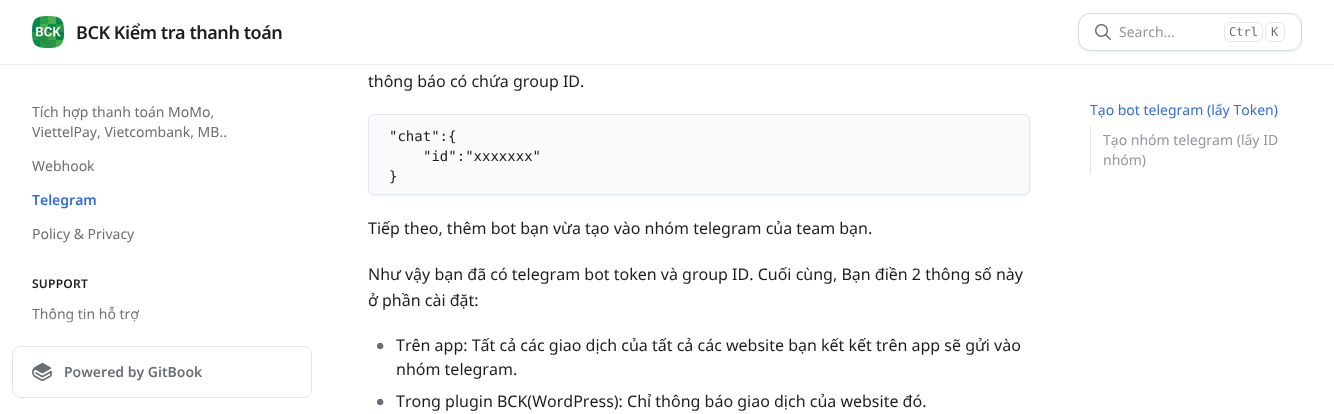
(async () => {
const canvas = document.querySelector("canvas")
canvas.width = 1334
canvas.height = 414
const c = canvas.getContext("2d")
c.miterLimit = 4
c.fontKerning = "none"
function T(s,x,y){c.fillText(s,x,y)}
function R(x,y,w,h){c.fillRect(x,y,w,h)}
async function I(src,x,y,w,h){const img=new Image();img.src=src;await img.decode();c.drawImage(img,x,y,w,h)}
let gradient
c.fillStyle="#fff"
R(0,0,1334,414)
c.fillStyle="#1c1d1f14"
R(0,64,1334,1)
await I("1.png",32,16,32,32)
c.letterSpacing="-0.45px"
c.font="600 18px Noto Sans"
c.fillStyle="#1c1d1f"
T("BCK Kiểm tra thanh toán",76,39)
c.fillStyle="#d5d9e066"
c.filter="blur(1px)"
c.beginPath()
c.roundRect(1078,14,224,38,12)
c.fill()
c.filter="none"
c.fillStyle="#fff"
c.beginPath()
c.roundRect(1078.5,13.5,223,37,11.5)
c.fill()
c.strokeStyle="#d5d9e0"
c.stroke()
await I("2.png",1095,24,16,16)
c.letterSpacing="0px"
c.font="14px Noto Sans"
c.fillStyle="#94979d"
T("Search…",1119,37)
c.beginPath()
c.roundRect(1224.5,22.5,38,19,5.5)
c.strokeStyle="#e2e6ec"
c.stroke()
c.font="12px DejaVu Sans Mono"
c.fillStyle="#6a6e77"
T("Ctrl",1229,36)
c.beginPath()
c.roundRect(1265.5,22.5,19,19,5.5)
c.stroke()
T("K",1271,36)
c.font="14px Noto Sans"
c.fillStyle="#6e6e70"
T("Tích hợp thanh toán MoMo,",32,117)
T("ViettelPay, Vietcombank, MB..",32,137)
T("Webhook",32,171)
c.font="600 14px Noto Sans"
c.fillStyle="#346ddb"
T("Telegram",32,205)
c.font="14px Noto Sans"
c.fillStyle="#6e6e70"
T("Policy & Privacy",32,239)
c.letterSpacing="0.25px"
c.font="600 12px Noto Sans"
c.fillStyle="#1c1d1f"
T("SUPPORT",32,288)
c.letterSpacing="0px"
c.font="14px Noto Sans"
c.fillStyle="#6e6e70"
T("Thông tin hỗ trợ",32,319)
gradient = c.createLinearGradient(162,314,162,346)
gradient.addColorStop(0,"#ffffff00")
gradient.addColorStop(1,"#fff")
c.fillStyle = gradient
R(35,315,103,8)
c.beginPath()
c.roundRect(12.5,346.5,299,51,7.5)
c.stroke()
await I("3.png",32,363,20,18)
c.font="600 14px Noto Sans"
c.fillStyle="#6a6e77"
T("Powered by GitBook",64,377)
c.font="16px Noto Sans"
c.fillStyle="#1c1d1f"
T("thông báo có chứa group ID.",368,87)
c.fillStyle="#0000000d"
c.filter="blur(1px)"
c.beginPath()
c.roundRect(368,115,662,81,6)
c.fill()
c.filter="none"
c.fillStyle="#f9fafb"
c.beginPath()
c.roundRect(368.5,114.5,661,80,5.5)
c.fill()
c.stroke()
c.font="14px DejaVu Sans Mono"
c.fillStyle="#1c1d1f"
T("\"chat\":{",389,141)
T("\"id\":\"xxxxxxx\"",423,161)
T("}",389,181)
c.font="16px Noto Sans"
T("Tiếp theo, thêm bot bạn vừa tạo vào nhóm telegram của team bạn.",368,234)
T("Như vậy bạn đã có telegram bot token và group ID. Cuối cùng, Bạn điền 2 thông số này",368,280)
T("ở phần cài đặt:",368,306)
c.font="24px Liberation Sans"
c.fillStyle="#6a6e77"
T("•",376,354)
c.font="16px Noto Sans"
c.fillStyle="#1c1d1f"
T("Trên app: Tất cả các giao dịch của tất cả các website bạn kết kết trên app sẽ gửi vào",396,351)
T("nhóm telegram.",396,375)
c.font="24px Liberation Sans"
c.fillStyle="#6a6e77"
T("•",376,410)
c.font="16px Noto Sans"
c.fillStyle="#1c1d1f"
T("Trong plugin BCK(WordPress): Chỉ thông báo giao dịch của website đó.",396,407)
c.font="14px Noto Sans"
c.fillStyle="#346ddb"
T("Tạo bot telegram (lấy Token)",1090,115)
c.fillStyle="#e1e4e9"
R(1090,126,1,48)
c.fillStyle="#94979d"
T("Tạo nhóm telegram (lấy ID",1103,145)
T("nhóm)",1103,165)
})()
